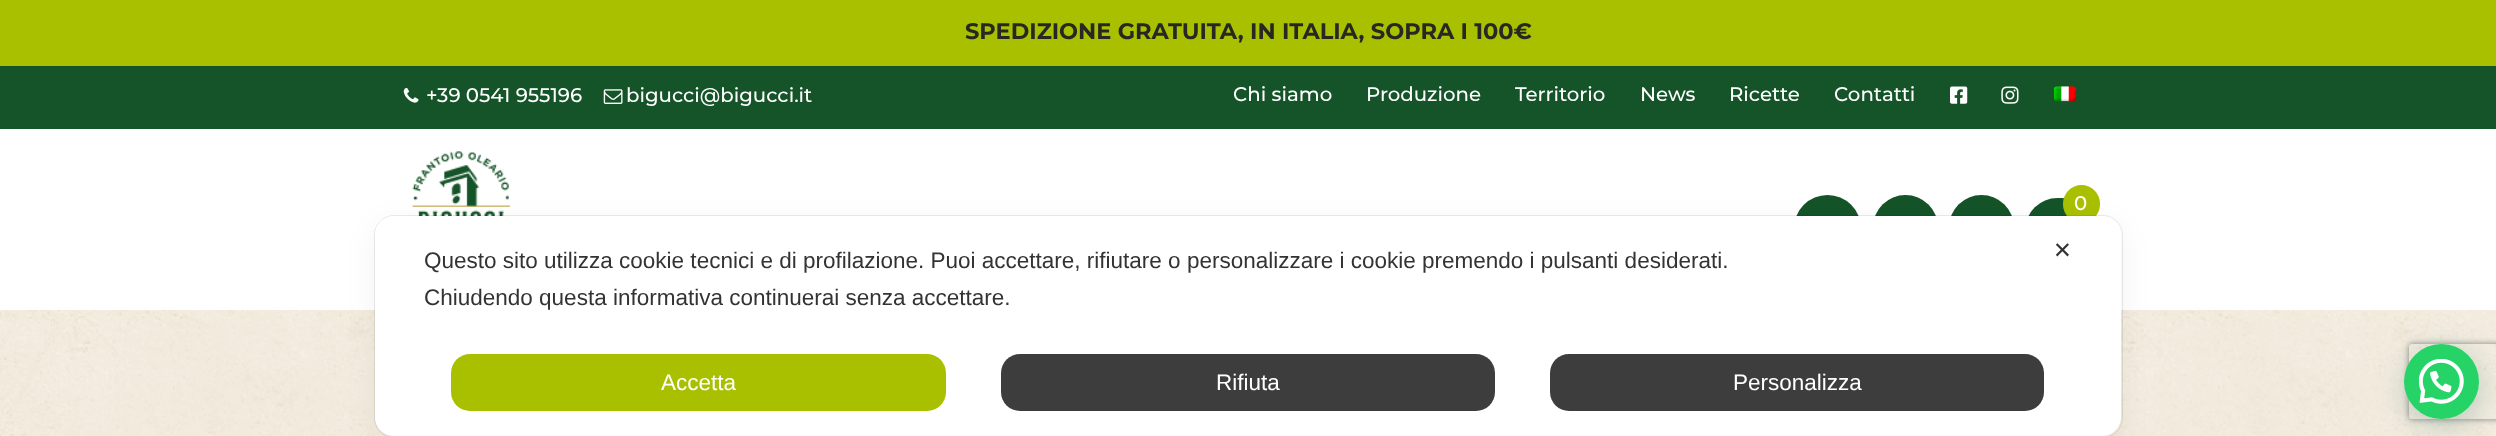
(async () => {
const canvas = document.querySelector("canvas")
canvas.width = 2496
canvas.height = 436
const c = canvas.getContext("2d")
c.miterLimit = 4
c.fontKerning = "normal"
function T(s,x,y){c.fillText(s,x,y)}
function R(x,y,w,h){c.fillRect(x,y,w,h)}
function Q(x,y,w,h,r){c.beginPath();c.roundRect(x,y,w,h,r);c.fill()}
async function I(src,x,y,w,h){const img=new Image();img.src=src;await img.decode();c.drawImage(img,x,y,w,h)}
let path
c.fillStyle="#fff"
R(0,0,2496,436)
c.fillStyle="#a9c000"
R(0,0,2496,66)
c.font="bold 22.5px Montserrat"
c.fillStyle="#272822"
T("SPEDIZIONE GRATUITA, IN ITALIA, SOPRA I 100€",965,39)
c.fillStyle="#155429"
R(0,66,2496,63)
await I("1.png",403,87,16,16)
c.font="500 19.75px Montserrat"
c.fillStyle="#fff"
T("+39 0541 955196",426,102)
await I("2.png",603,89,20,15)
T("bigucci@bigucci.it",626,102)
T("Chi siamo",1233,101)
T("Produzione",1366,101)
T("Territorio",1515,101)
T("News",1640,101)
T("Ricette",1729,101)
T("Contatti",1834,101)
await I("3.png",1950,86,18,18)
await I("4.png",2001,86,18,18)
await I("5.png",2053,86,24,16)
await I("6.png",412,151,99,65)
c.fillStyle="#155429"
Q(1794,195,67,68,33.5)
Q(1873,195,65,68,32.5)
Q(1949,195,65,68,32.5)
Q(2025,198,69,65,32.5)
c.fillStyle="#a9c000"
Q(2063,185,37,38,18.5)
c.fillStyle="#fff"
T("0",2074,210)
await I("7.png",0,310,2496,126)
c.beginPath()
c.roundRect(374.5,215.5,1748,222,19.5)
c.strokeStyle="#00000014"
c.stroke()
c.fillStyle="#0000000d"
c.filter="blur(15px)"
c.beginPath()
c.roundRect(375,224,1746,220,19)
c.fill()
c.filter="none"
c.fillStyle="#fff"
Q(375,216,1746,220,19)
c.font="22.5px Liberation Sans"
c.fillStyle="#333"
T("Questo sito utilizza cookie tecnici e di profilazione. Puoi accettare, rifiutare o personalizzare i cookie premendo i pulsanti desiderati.",424,268)
T("Chiudendo questa informativa continuerai senza accettare.",424,305)
c.fillStyle="#a9c000"
Q(451,354,495,57,19)
c.fillStyle="#fff"
T("Accetta",661,390)
c.fillStyle="#3d3d3d"
Q(1001,354,494,57,19)
c.fillStyle="#fff"
T("Rifiuta",1216,390)
c.fillStyle="#3d3d3d"
Q(1550,354,494,57,19)
c.fillStyle="#fff"
T("Personalizza",1733,390)
c.font="22.5px DejaVu Sans"
c.fillStyle="#333"
T("✕",2053,258)
c.fillStyle="#075e543d"
c.filter="blur(15px)"
c.beginPath()
c.roundRect(2405,351,75,75,37.5)
c.fill()
c.filter="none"
c.save()
path = new Path2D("M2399 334h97v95h-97zm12.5 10h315c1.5 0 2.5 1 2.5 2.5v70c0 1.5-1 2.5-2.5 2.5h-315c-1.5 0-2.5-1-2.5-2.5v-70c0-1.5 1-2.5 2.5-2.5z")
c.clip(path,"evenodd")
c.fillStyle="#808080"
c.filter="blur(3px)"
c.beginPath()
c.roundRect(2409,344,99,75,2.5)
c.fill()
c.filter="none"
c.restore()
c.fillStyle="#25d366"
c.beginPath()
c.arc(2441.5,381.5,37.5,0,7)
c.fill()
await I("8.png",2419,359,45,45)
})()
